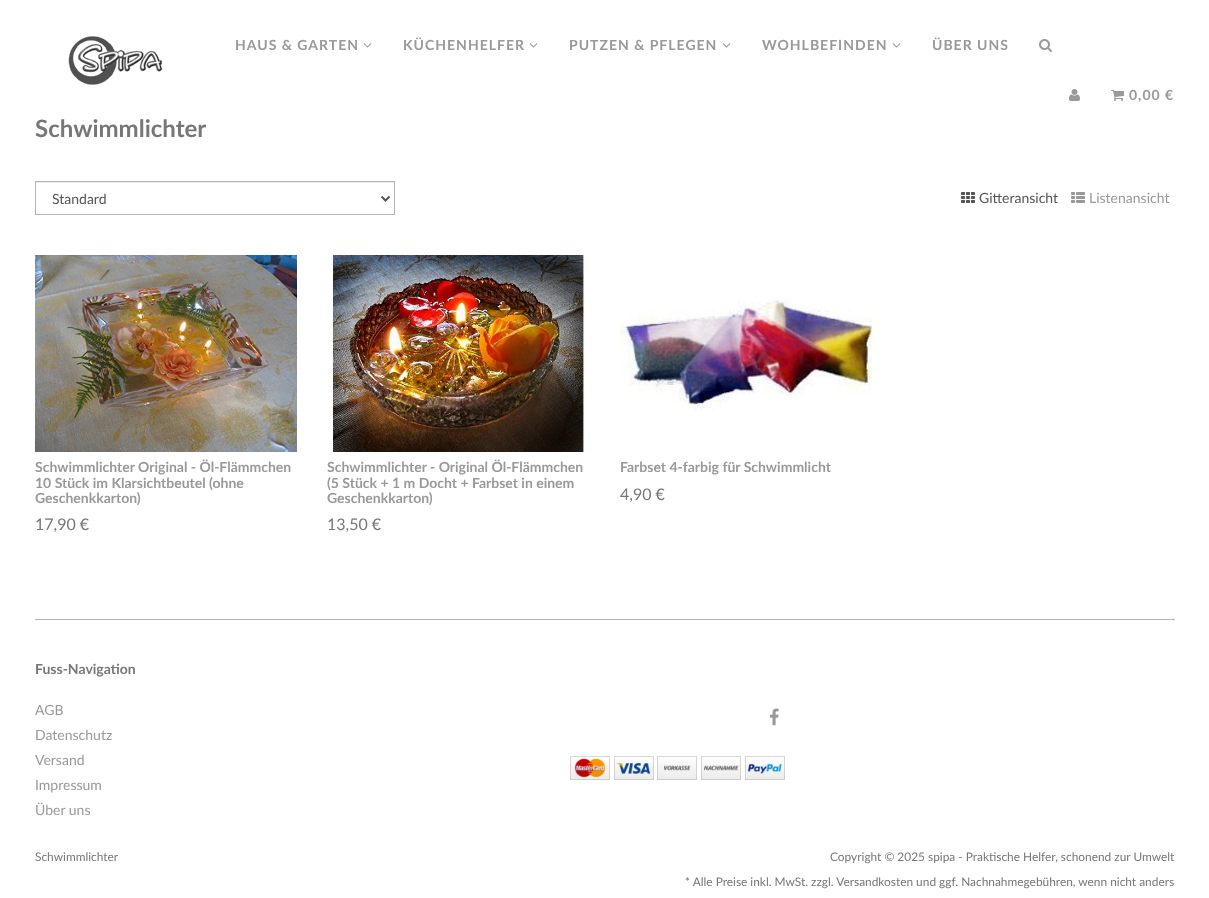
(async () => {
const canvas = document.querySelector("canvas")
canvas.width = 1209
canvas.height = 898
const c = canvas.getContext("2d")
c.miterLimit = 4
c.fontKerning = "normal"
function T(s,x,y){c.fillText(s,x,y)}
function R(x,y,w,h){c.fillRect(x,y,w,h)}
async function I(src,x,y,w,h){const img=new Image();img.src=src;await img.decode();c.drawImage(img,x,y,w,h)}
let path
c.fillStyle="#fff"
R(0,0,1209,898)
await I("1.png",68,36,95,49)
c.letterSpacing="1px"
c.font="bold 14px Lato"
c.fillStyle="#999"
T("HAUS & GARTEN",235,50)
await I("2.png",363,43,9,5)
T("KÜCHENHELFER",403,50)
await I("2.png",529,43,9,5)
T("PUTZEN & PFLEGEN",569,50)
await I("2.png",722,43,9,5)
T("WOHLBEFINDEN",762,50)
await I("2.png",892,43,9,5)
T("ÜBER UNS",932,50)
await I("3.png",1039,39,13,13)
await I("4.png",1069,89,11,12)
await I("5.png",1111,90,13,11)
T("0,00 €",1129,100)
c.letterSpacing="0px"
c.font="bold 24px Lato"
c.fillStyle="#777"
T("Schwimmlichter",35,137)
c.fillStyle="#ececec"
R(36,182,358,1)
c.strokeStyle="#b5b5b5"
c.strokeRect(35.5,181.5,359,33)
path = new Path2D("M381.5 196.5l4 4l4-4")
c.strokeStyle="#555"
c.lineWidth=2
c.stroke(path)
c.font="14px Lato"
c.fillStyle="#555"
T("Standard",52,204)
await I("6.png",961,192,14,11)
T("Gitteransicht",979,203)
await I("7.png",1071,192,14,11)
c.fillStyle="#999"
T("Listenansicht",1089,203)
await I("8.png",35,255,262,197)
c.font="bold 14px Lato"
T("Schwimmlichter Original - Öl-Flämmchen",35,472)
T("10 Stück im Klarsichtbeutel (ohne",35,488)
T("Geschenkkarton)",35,503)
c.font="16px Lato"
c.fillStyle="#777"
T("17,90 €",35,530)
await I("9.png",327,255,263,197)
c.font="bold 14px Lato"
c.fillStyle="#999"
T("Schwimmlichter - Original Öl-Flämmchen",327,472)
T("(5 Stück + 1 m Docht + Farbset in einem",327,488)
T("Geschenkkarton)",327,503)
c.font="16px Lato"
c.fillStyle="#777"
T("13,50 €",327,530)
await I("10.png",620,296,253,116)
c.font="bold 14px Lato"
c.fillStyle="#999"
T("Farbset 4-farbig für Schwimmlicht",620,472)
c.font="16px Lato"
c.fillStyle="#777"
T("4,90 €",620,500)
c.fillStyle="#b5b5b5"
R(35,619,1140,1)
c.font="bold 14px Lato"
c.fillStyle="#777"
T("Fuss-Navigation",35,674)
c.font="14px Lato"
c.fillStyle="#999"
T("AGB",35,715)
T("Datenschutz",35,740)
T("Versand",35,765)
T("Impressum",35,790)
T("Über uns",35,815)
await I("11.png",769,708,10,18)
await I("12.png",570,756,40,24)
await I("13.png",614,756,40,24)
await I("14.png",657,756,40,24)
await I("15.png",701,756,40,24)
await I("16.png",745,756,40,24)
c.font="11.9px Lato"
c.fillStyle="#777"
T("Schwimmlichter",35,861)
T("Copyright © 2025 spipa - Praktische Helfer, schonend zur Umwelt",830,861)
T("* Alle Preise inkl. MwSt. zzgl. Versandkosten und ggf. Nachnahmegebühren, wenn nicht anders",685,886)
})()
